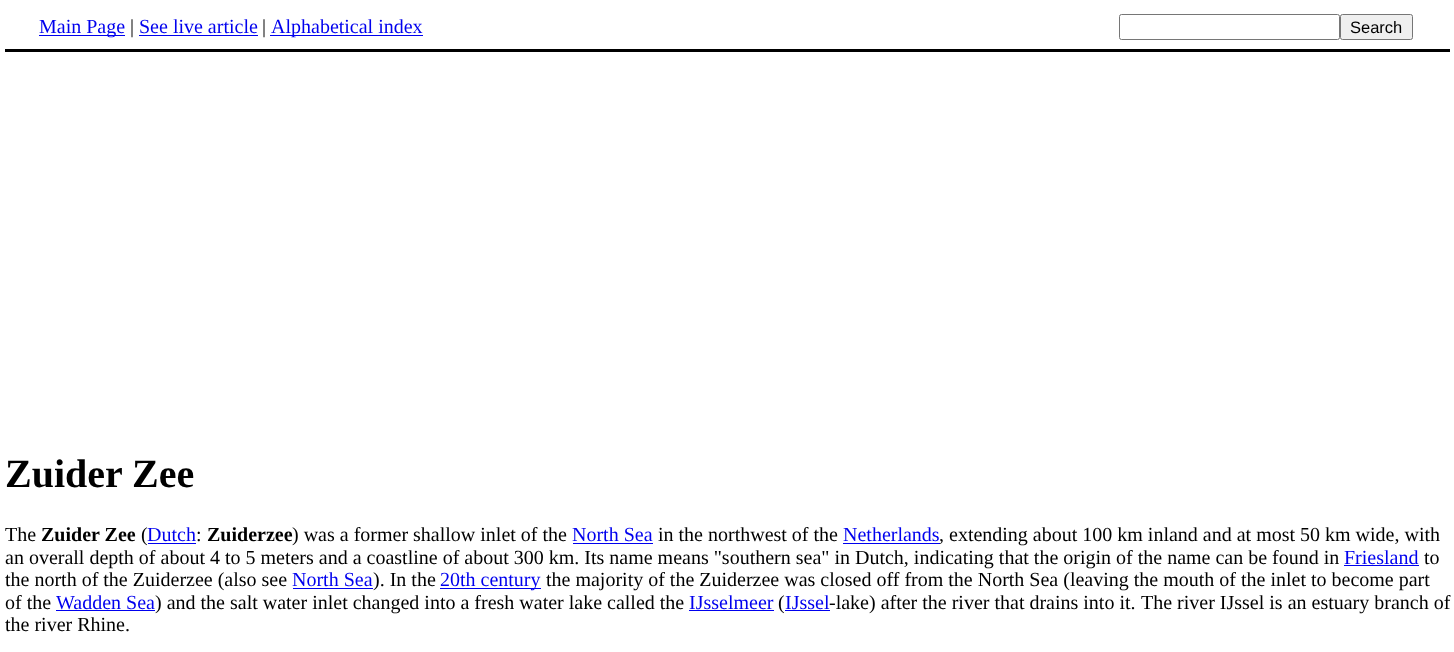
(async () => {
const canvas = document.querySelector("canvas")
canvas.width = 1454
canvas.height = 652
const c = canvas.getContext("2d")
c.miterLimit = 4
c.fontKerning = "normal"
function T(s,x,y){c.fillText(s,x,y)}
function R(x,y,w,h){c.fillRect(x,y,w,h)}
c.fillStyle="#fff"
R(0,0,1454,652)
c.fillStyle="#000"
R(5,49,1445,3)
c.fillStyle="#00e"
R(39,35,86,1)
c.font="20px Liberation Serif"
T("Main Page",39,33)
c.fillStyle="#000"
T("|",130,33)
c.fillStyle="#00e"
T("See live article",139,33)
R(139,35,119,1)
c.fillStyle="#000"
T("|",262,33)
c.fillStyle="#00e"
R(270,35,153,1)
T("Alphabetical index",271,33)
c.beginPath()
c.roundRect(1119.5,14.5,220,25,2)
c.strokeStyle="#767676"
c.stroke()
c.fillStyle="#efefef"
c.beginPath()
c.roundRect(1340.5,14.5,72,25,2)
c.fill()
c.stroke()
c.font="16.5px Liberation Sans"
c.fillStyle="#000"
T("Search",1350,33)
c.font="bold 40px Liberation Serif"
T("Zuider Zee",5,487)
c.font="20px Liberation Serif"
T("The",5,541)
c.font="bold 20px Liberation Serif"
T("Zuider Zee",41,541)
c.font="20px Liberation Serif"
T("(",141,541)
c.fillStyle="#00e"
T("Dutch",147,541)
R(148,543,48,1)
c.fillStyle="#000"
T(":",196,541)
c.font="bold 20px Liberation Serif"
T("Zuiderzee",207,541)
c.font="20px Liberation Serif"
T(") was a former shallow inlet of the",292,541)
c.fillStyle="#00e"
T("North Sea",572,541)
R(573,543,80,1)
c.fillStyle="#000"
T("in the northwest of the",658,541)
c.fillStyle="#00e"
T("Netherlands",843,541)
R(843,543,97,1)
c.fillStyle="#000"
T(", extending about 100 km inland and at most 50 km wide, with",939,541)
T("an overall depth of about 4 to 5 meters and a coastline of about 300 km. Its name means \"southern sea\" in Dutch, indicating that the origin of the name can be found in",5,564)
c.fillStyle="#00e"
T("Friesland",1344,564)
R(1344,565,75,1)
c.fillStyle="#000"
T("to",1424,564)
T("the north of the Zuiderzee (also see",5,586)
c.fillStyle="#00e"
T("North Sea",292,586)
R(293,588,80,1)
c.fillStyle="#000"
T("). In the",373,586)
c.fillStyle="#00e"
R(440,588,101,1)
T("20th century",440,586)
c.fillStyle="#000"
T("the majority of the Zuiderzee was closed off from the North Sea (leaving the mouth of the inlet to become part",546,586)
T("of the",5,609)
c.fillStyle="#00e"
T("Wadden Sea",56,609)
R(56,610,99,1)
c.fillStyle="#000"
T(") and the salt water inlet changed into a fresh water lake called the",155,609)
c.fillStyle="#00e"
T("IJsselmeer",689,609)
R(689,610,85,1)
c.fillStyle="#000"
T("(",778,609)
c.fillStyle="#00e"
T("IJssel",785,609)
R(785,610,45,1)
c.fillStyle="#000"
T("-lake) after the river that drains into it.",829,609)
T("The river IJssel is an estuary branch of",1141,609)
T("the river Rhine.",5,631)
})()
